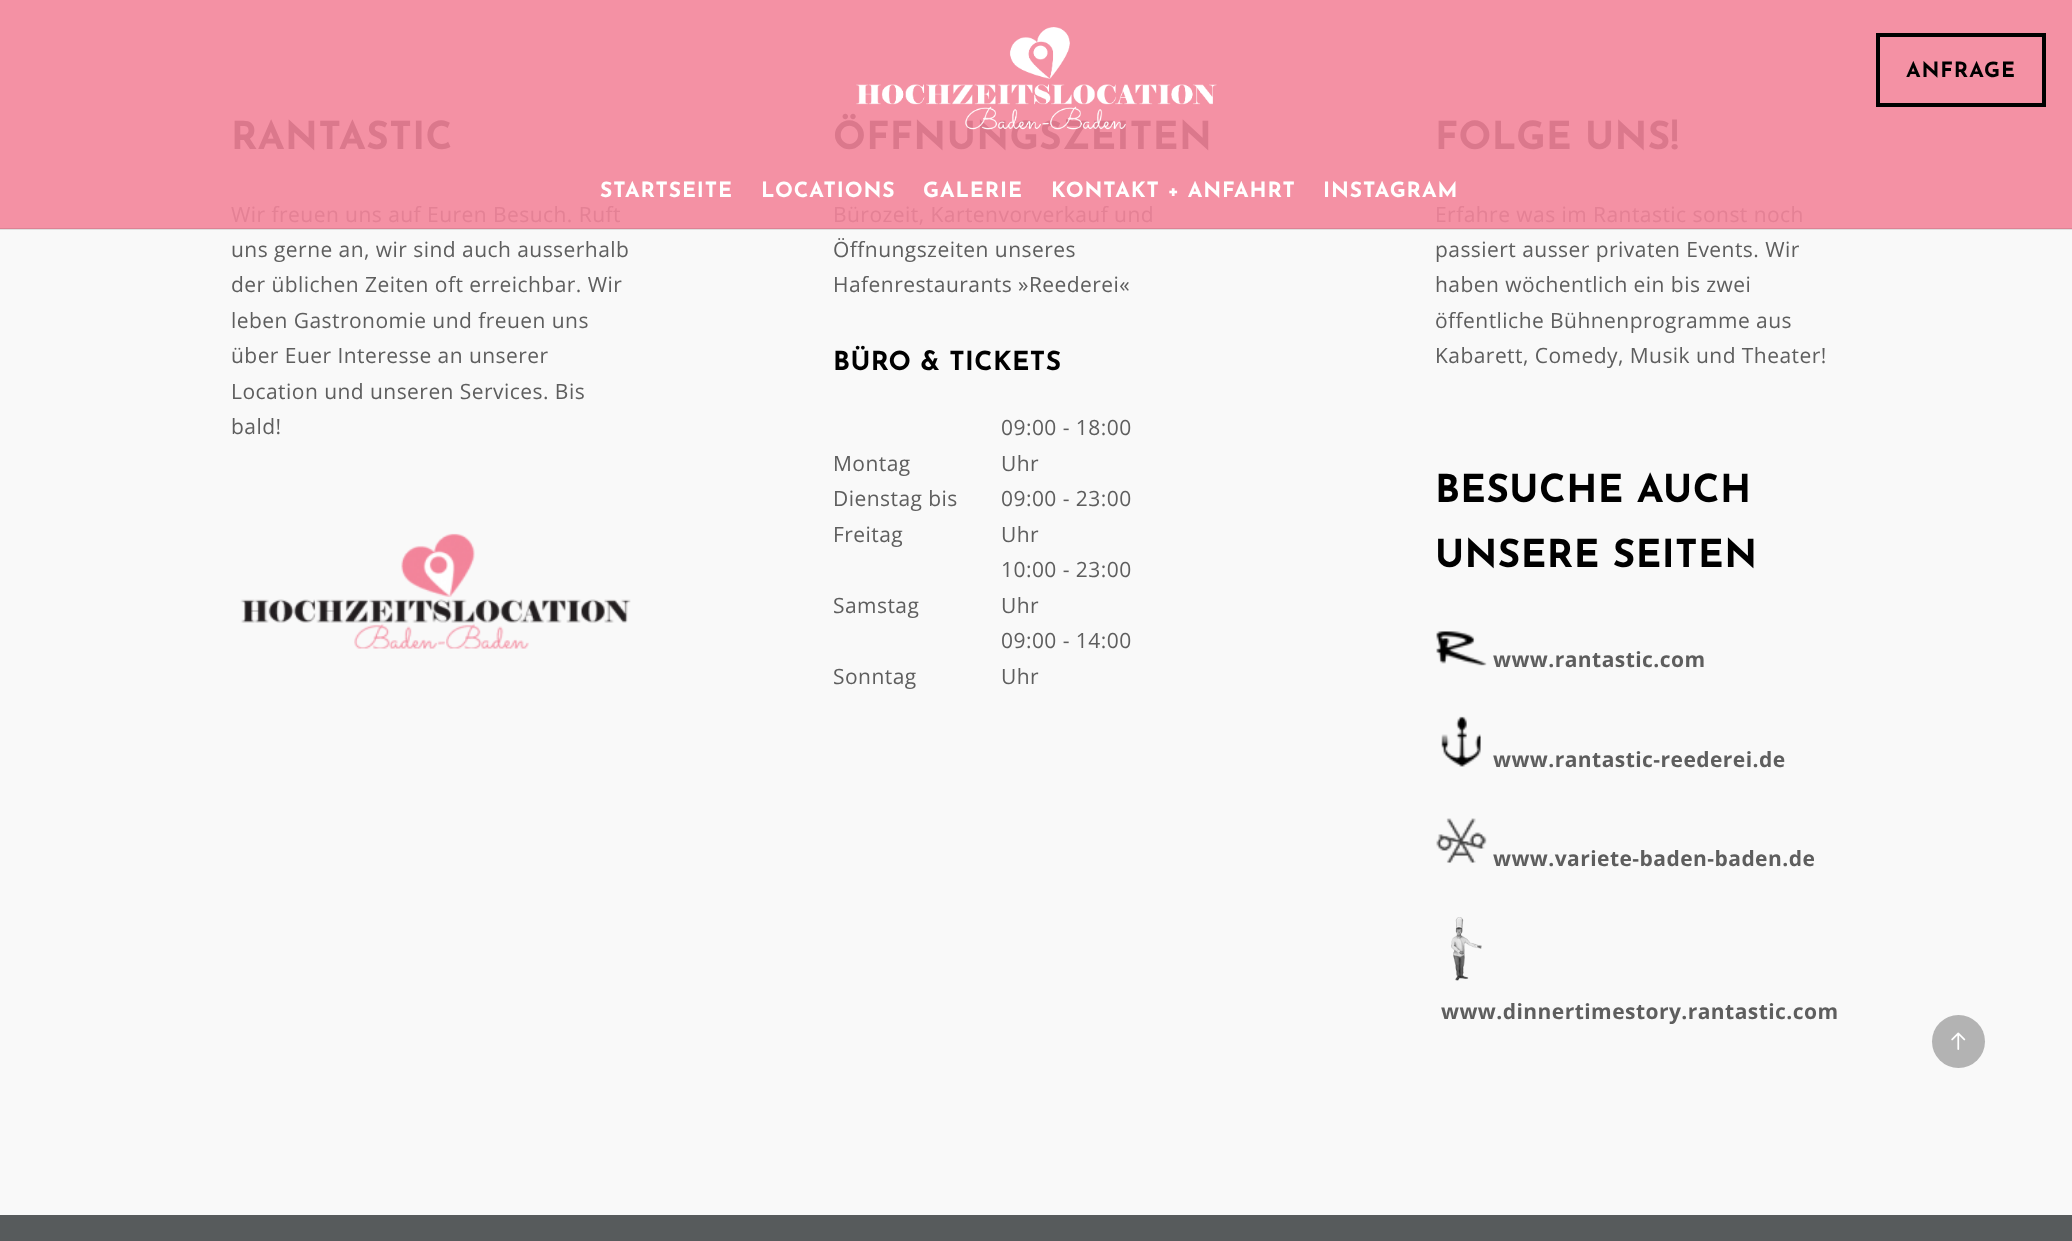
(async () => {
const canvas = document.querySelector("canvas")
canvas.width = 2072
canvas.height = 1241
const c = canvas.getContext("2d")
c.miterLimit = 4
c.fontKerning = "normal"
function T(s,x,y){c.fillText(s,x,y)}
function R(x,y,w,h){c.fillRect(x,y,w,h)}
async function I(src,x,y,w,h){const img=new Image();img.src=src;await img.decode();c.drawImage(img,x,y,w,h)}
c.fillStyle="#f9f9f9"
R(0,0,2072,1241)
c.fillStyle="#f491a4"
R(0,0,2072,228)
c.strokeStyle="#000"
c.lineWidth=4
c.strokeRect(1878,35,166,70)
c.letterSpacing="0.9px"
c.font="bold 21px Josefin Sans"
c.fillStyle="#000"
T("ANFRAGE",1906,77)
c.letterSpacing="0.45px"
c.font="bold 38.5px Josefin Sans"
c.fillStyle="#db788c"
T("ÖFFNUNGSZEITEN",833,149)
await I("1.png",856,27,361,103)
c.letterSpacing="0.9px"
c.font="bold 21px Josefin Sans"
c.fillStyle="#fff"
T("STARTSEITE",600,197)
T("LOCATIONS",761,197)
T("GALERIE",923,197)
T("KONTAKT + ANFAHRT",1051,197)
T("INSTAGRAM",1323,197)
c.fillStyle="#e0e0e0"
R(0,229,2072,1)
c.fillStyle="#dc8394"
R(0,228,2072,1)
c.letterSpacing="0.45px"
c.font="bold 38.5px Josefin Sans"
c.fillStyle="#db788c"
T("RANTASTIC",231,149)
c.font="21px Open Sans"
c.fillStyle="#e48195"
T("Wir freuen uns auf Euren Besuch. Ruft",231,222)
c.fillStyle="#5e5e5e"
T("uns gerne an, wir sind auch ausserhalb",231,257)
T("der üblichen Zeiten oft erreichbar. Wir",231,292)
T("leben Gastronomie und freuen uns",231,328)
T("über Euer Interesse an unserer",231,363)
T("Location und unseren Services. Bis",231,399)
T("bald!",231,434)
await I("2.png",240,533,391,116)
c.fillStyle="#e48195"
T("Bürozeit, Kartenvorverkauf und",833,222)
c.fillStyle="#5e5e5e"
T("Öffnungszeiten unseres",833,257)
T("Hafenrestaurants »Reederei«",833,292)
c.font="bold 26.25px Josefin Sans"
c.fillStyle="#000"
T("BÜRO & TICKETS",833,370)
c.font="21px Open Sans"
c.fillStyle="#5e5e5e"
T("Montag",833,471)
T("09:00 - 18:00",1001,435)
T("Uhr",1001,471)
T("Dienstag bis",833,506)
T("Freitag",833,542)
T("09:00 - 23:00",1001,506)
T("Uhr",1001,542)
T("Samstag",833,613)
T("10:00 - 23:00",1001,577)
T("Uhr",1001,613)
T("Sonntag",833,684)
T("09:00 - 14:00",1001,648)
T("Uhr",1001,684)
c.font="bold 38.5px Josefin Sans"
c.fillStyle="#db788c"
T("FOLGE UNS!",1435,149)
c.font="21px Open Sans"
c.fillStyle="#e48195"
T("Erfahre was im Rantastic sonst noch",1435,222)
c.fillStyle="#5e5e5e"
T("passiert ausser privaten Events. Wir",1435,257)
T("haben wöchentlich ein bis zwei",1435,292)
T("öffentliche Bühnenprogramme aus",1435,328)
T("Kabarett, Comedy, Musik und Theater!",1435,363)
c.font="bold 38.5px Josefin Sans"
c.fillStyle="#000"
T("BESUCHE AUCH",1435,502)
T("UNSERE SEITEN",1435,567)
await I("3.png",1436,631,51,35)
c.font="bold 21px Open Sans"
c.fillStyle="#5e5e5e"
T("www.rantastic.com",1493,667)
await I("4.png",1441,716,40,51)
T("www.rantastic-reederei.de",1493,767)
await I("5.png",1436,818,51,45)
T("www.variete-baden-baden.de",1493,866)
await I("6.png",1451,917,31,64)
T("www.dinnertimestory.rantastic.com",1441,1019)
c.fillStyle="#b3b3b3"
c.beginPath()
c.arc(1958.5,1041.5,26.5,0,7)
c.fill()
await I("7.png",1951,1032,15,18)
c.fillStyle="#575b5c"
R(0,1215,2072,26)
})()
